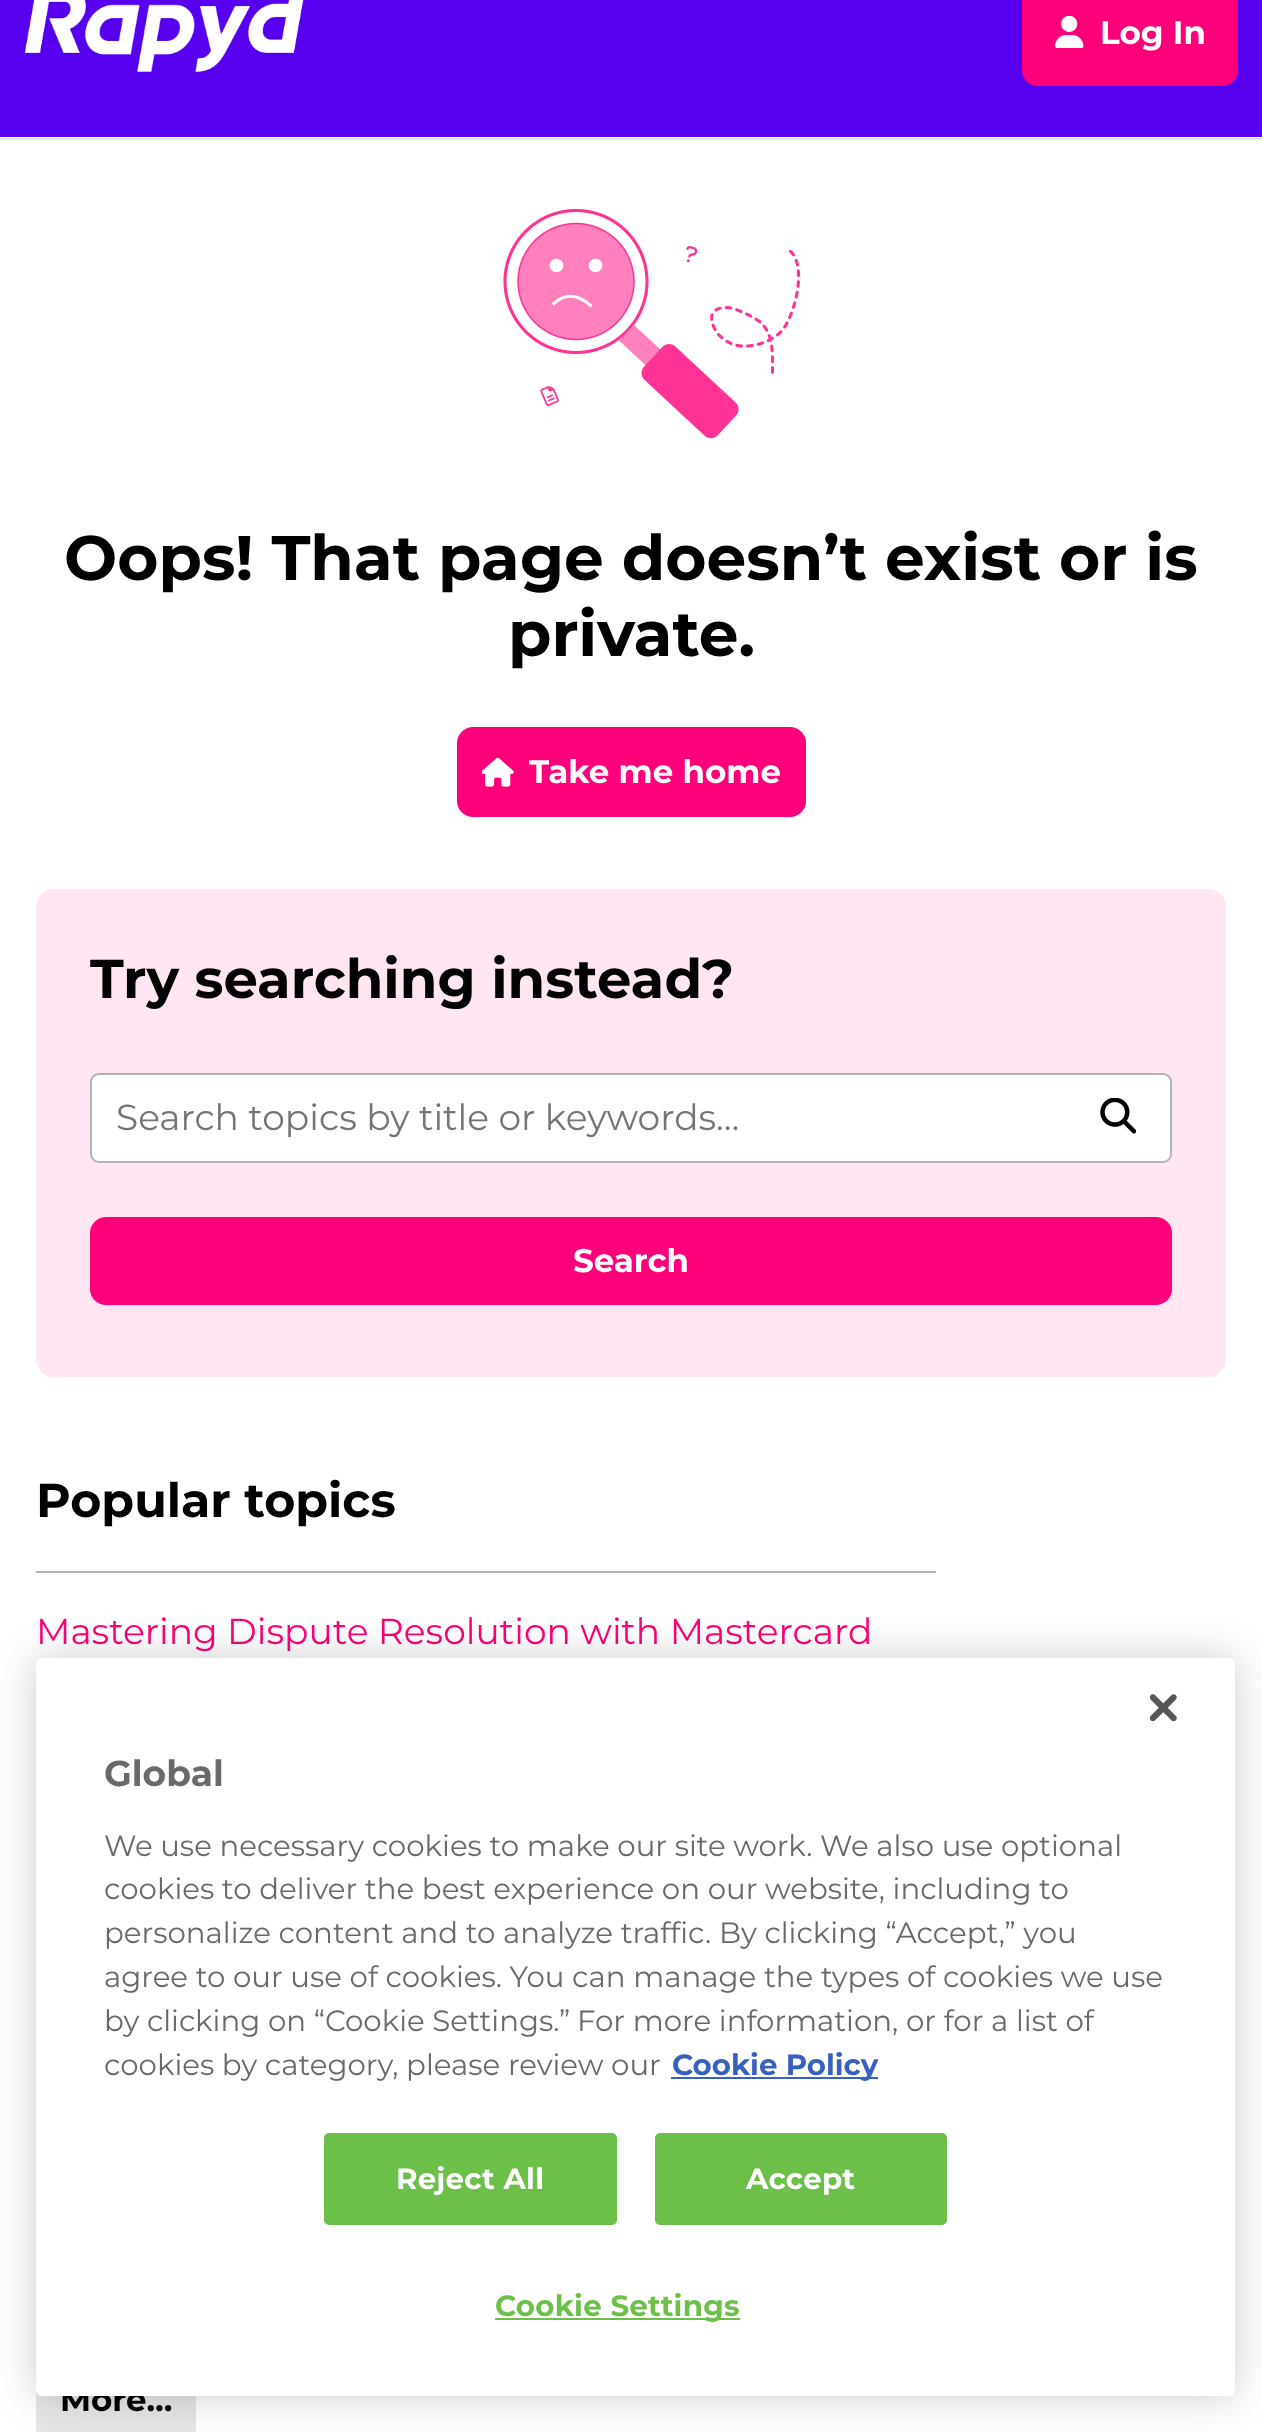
(async () => {
const canvas = document.querySelector("canvas")
canvas.width = 1262
canvas.height = 2432
const c = canvas.getContext("2d")
c.miterLimit = 4
c.fontKerning = "normal"
function T(s,x,y){c.fillText(s,x,y)}
function R(x,y,w,h){c.fillRect(x,y,w,h)}
function Q(x,y,w,h,r){c.beginPath();c.roundRect(x,y,w,h,r);c.fill()}
async function I(src,x,y,w,h){const img=new Image();img.src=src;await img.decode();c.drawImage(img,x,y,w,h)}
c.fillStyle="#fff"
R(0,0,1262,2432)
c.strokeStyle="#e6e6e6"
c.lineWidth=2
c.strokeRect(-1,-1,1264,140)
c.fillStyle="#5600ef"
R(0,0,1262,137)
await I("1.png",25,0,279,72)
c.fillStyle="#ff007a"
Q(1022,-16,216,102,16)
await I("2.png",1055,16,29,32)
c.font="100 32.5px Montserrat"
c.fillStyle="#fff"
T("Log In",1100,44)
await I("3.png",503,209,298,230)
c.font="100 63px Montserrat"
c.fillStyle="#000"
T("Oops! That page doesn’t exist or is",64,580)
T("private.",508,656)
c.fillStyle="#ff007a"
Q(457,727,349,90,16)
await I("4.png",482,757,32,30)
c.font="100 32.5px Montserrat"
c.fillStyle="#fff"
T("Take me home",529,783)
c.fillStyle="#ffe6f2"
Q(36,889,1190,488,18)
c.font="100 54.5px Montserrat"
c.fillStyle="#000"
T("Try searching instead?",90,998)
c.fillStyle="#fff"
c.beginPath()
c.roundRect(91,1074,1080,88,8)
c.fill()
c.strokeStyle="#b3b3b3"
c.stroke()
c.font="100 36px 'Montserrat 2'"
c.fillStyle="#757575"
T("Search topics by title or keywords…",116,1130)
await I("5.png",1100,1098,36,36)
c.fillStyle="#ff007a"
Q(90,1217,1082,88,16)
c.font="100 32.5px Montserrat"
c.fillStyle="#fff"
T("Search",573,1272)
c.fillStyle="#b3b3b3"
R(36,1571,900,2)
c.font="100 47.5px Montserrat"
c.fillStyle="#000"
T("Popular topics",36,1517)
c.font="100 36px 'Montserrat 2'"
c.fillStyle="#ff007a"
T("Mastering Dispute Resolution with Mastercard",36,1644)
c.fillStyle="#e6e6e6"
Q(36,2356,160,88,16)
c.font="100 32.5px Montserrat"
c.fillStyle="#000"
T("More…",60,2411)
c.fillStyle="#00000033"
c.filter="blur(20px)"
c.beginPath()
c.roundRect(36,1658,1199,738,6)
c.fill()
c.filter="none"
c.fillStyle="#fff"
Q(36,1658,1199,738,6)
await I("6.png",1150,1694,27,27)
c.font="100 36px Montserrat"
c.fillStyle="#696969"
T("Global",104,1786)
c.font="100 29.25px 'Montserrat 2'"
T("We use necessary cookies to make our site work. We also use optional",104,1856)
T("cookies to deliver the best experience on our website, including to",104,1899)
T("personalize content and to analyze traffic. By clicking “Accept,” you",104,1943)
T("agree to our use of cookies. You can manage the types of cookies we use",104,1987)
T("by clicking on “Cookie Settings.”",104,2031)
T("For more information, or for a list of",577,2031)
T("cookies by category, please review our",104,2075)
c.fillStyle="#3860be"
R(671,2077,207,2)
c.font="100 29.25px Montserrat"
T("Cookie Policy",672,2075)
c.fillStyle="#6cc04a"
c.beginPath()
c.roundRect(325,2134,291,90,4)
c.fill()
c.strokeStyle="#6cc04a"
c.stroke()
c.letterSpacing="0.25px"
c.fillStyle="#fff"
T("Reject All",396,2189)
c.fillStyle="#6cc04a"
c.beginPath()
c.roundRect(656,2134,290,90,4)
c.fill()
c.stroke()
c.fillStyle="#fff"
T("Accept",746,2189)
c.fillStyle="#6cc04a"
R(495,2318,245,2)
T("Cookie Settings",495,2316)
})()
